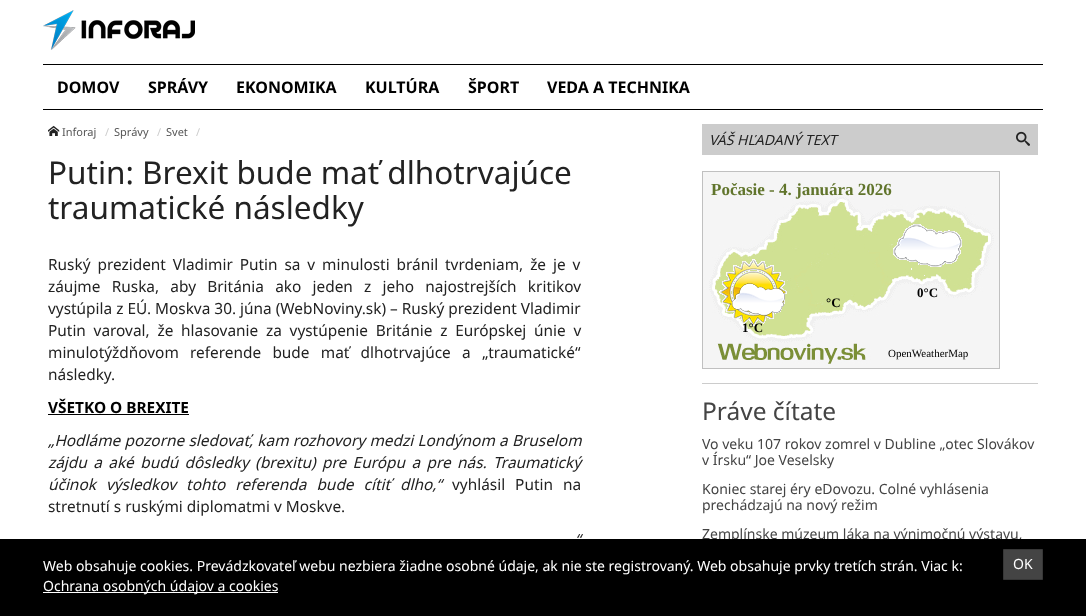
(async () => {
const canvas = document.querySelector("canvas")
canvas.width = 1086
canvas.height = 616
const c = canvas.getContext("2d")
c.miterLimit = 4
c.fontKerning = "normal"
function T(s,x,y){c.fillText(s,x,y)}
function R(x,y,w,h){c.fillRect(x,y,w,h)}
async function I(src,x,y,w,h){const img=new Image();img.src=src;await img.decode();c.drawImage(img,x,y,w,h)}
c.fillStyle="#fff"
R(0,0,1086,616)
await I("1.png",43,10,152,40)
c.fillStyle="#000"
R(43,64,1000,1)
R(43,109,1000,1)
c.font="bold 16px Noto Sans"
T("DOMOV",57,93)
T("SPRÁVY",148,93)
T("EKONOMIKA",236,93)
T("KULTÚRA",365,93)
T("ŠPORT",468,93)
T("VEDA A TECHNIKA",547,93)
await I("2.png",48,125,12,11)
c.font="11px Noto Sans"
c.fillStyle="#555"
T("Inforaj",62,136)
c.fillStyle="#ccc"
T("/",105,136)
c.fillStyle="#555"
T("Správy",114,136)
c.fillStyle="#ccc"
T("/",157,136)
c.fillStyle="#555"
T("Svet",166,136)
c.fillStyle="#ccc"
T("/",196,136)
c.font="31.5px Noto Sans"
c.fillStyle="#222"
T("Putin: Brexit bude mať dlhotrvajúce",48,184)
T("traumatické následky",48,219)
c.wordSpacing="2.9px"
c.font="15.4px Noto Sans"
T("Ruský prezident Vladimir Putin sa v minulosti bránil tvrdeniam, že je v",48,270)
c.wordSpacing="7.25px"
T("záujme Ruska, aby Británia ako jeden z jeho najostrejších kritikov",48,292)
c.wordSpacing="0px"
T("vystúpila z EÚ. Moskva 30. júna (WebNoviny.sk) – Ruský prezident Vladimir",48,314)
c.wordSpacing="3.75px"
T("Putin varoval, že hlasovanie za vystúpenie Británie z Európskej únie v",48,336)
c.wordSpacing="7.25px"
T("minulotýždňovom referende bude mať dlhotrvajúce a „traumatické“",48,358)
c.wordSpacing="0px"
T("následky.",48,380)
c.font="bold 15.4px Noto Sans"
c.fillStyle="#000"
T("VŠETKO O BREXITE",48,413)
R(48,414,141,1)
c.wordSpacing="0.25px"
c.font="italic 15.4px Noto Sans"
c.fillStyle="#222"
T("„Hodláme pozorne sledovať, kam rozhovory medzi Londýnom a Bruselom",48,446)
c.wordSpacing="2.4px"
T("zájdu a aké budú dôsledky (brexitu) pre Európu a pre nás. Traumatický",48,468)
c.wordSpacing="6px"
T("účinok výsledkov tohto referenda bude cítiť dlho,“",48,490)
c.font="15.4px Noto Sans"
T("vyhlásil Putin na",452,490)
c.wordSpacing="0px"
T("stretnutí s ruskými diplomatmi v Moskve.",48,512)
c.wordSpacing="7.25px"
c.font="italic 15.4px Noto Sans"
T("“",575,545)
c.fillStyle="#ccc"
R(702,124,336,31)
c.wordSpacing="0px"
c.font="italic 14px Noto Sans"
c.fillStyle="#222"
T("VÁŠ HĽADANÝ TEXT",709,145)
await I("3.png",1016,131,14,15)
c.fillStyle="#ccc"
R(702,383,336,1)
await I("4.png",703,172,296,196)
c.strokeStyle="#c0c0c0"
c.strokeRect(702.5,171.5,297,197)
c.font="bold 17px Liberation Serif"
c.fillStyle="#61752c"
T("Počasie - 4. januára 2026",711,195)
await I("5.png",893,224,69,52)
await I("6.png",719,259,68,67)
c.font="bold 13px Liberation Serif"
c.fillStyle="#000"
T("0°C",917,297)
T("°C",826,307)
T("1°C",742,332)
c.font="11px Liberation Serif"
T("OpenWeatherMap",888,357)
c.font="24.5px Noto Sans"
c.fillStyle="#444"
T("Práve čítate",702,420)
c.font="14px Noto Sans"
T("Vo veku 107 rokov zomrel v Dubline „otec Slovákov",702,449)
T("v Írsku“ Joe Veselsky",702,465)
T("Koniec starej éry eDovozu. Colné vyhlásenia",702,494)
T("prechádzajú na nový režim",702,510)
T("Zemplínske múzeum láka na výnimočnú výstavu,",702,539)
c.fillStyle="#000"
R(0,539,1086,77)
c.fillStyle="#fff"
T("Web obsahuje cookies. Prevádzkovateľ webu nezbiera žiadne osobné údaje, ak nie ste registrovaný. Web obsahuje prvky tretích strán. Viac k:",43,571)
R(43,592,235,1)
T("Ochrana osobných údajov a cookies",43,591)
c.fillStyle="#444"
c.beginPath()
c.rect(1003.5,549.5,39,30)
c.fill()
c.strokeStyle="#373737"
c.stroke()
c.fillStyle="#fff"
T("OK",1013,569)
})()
